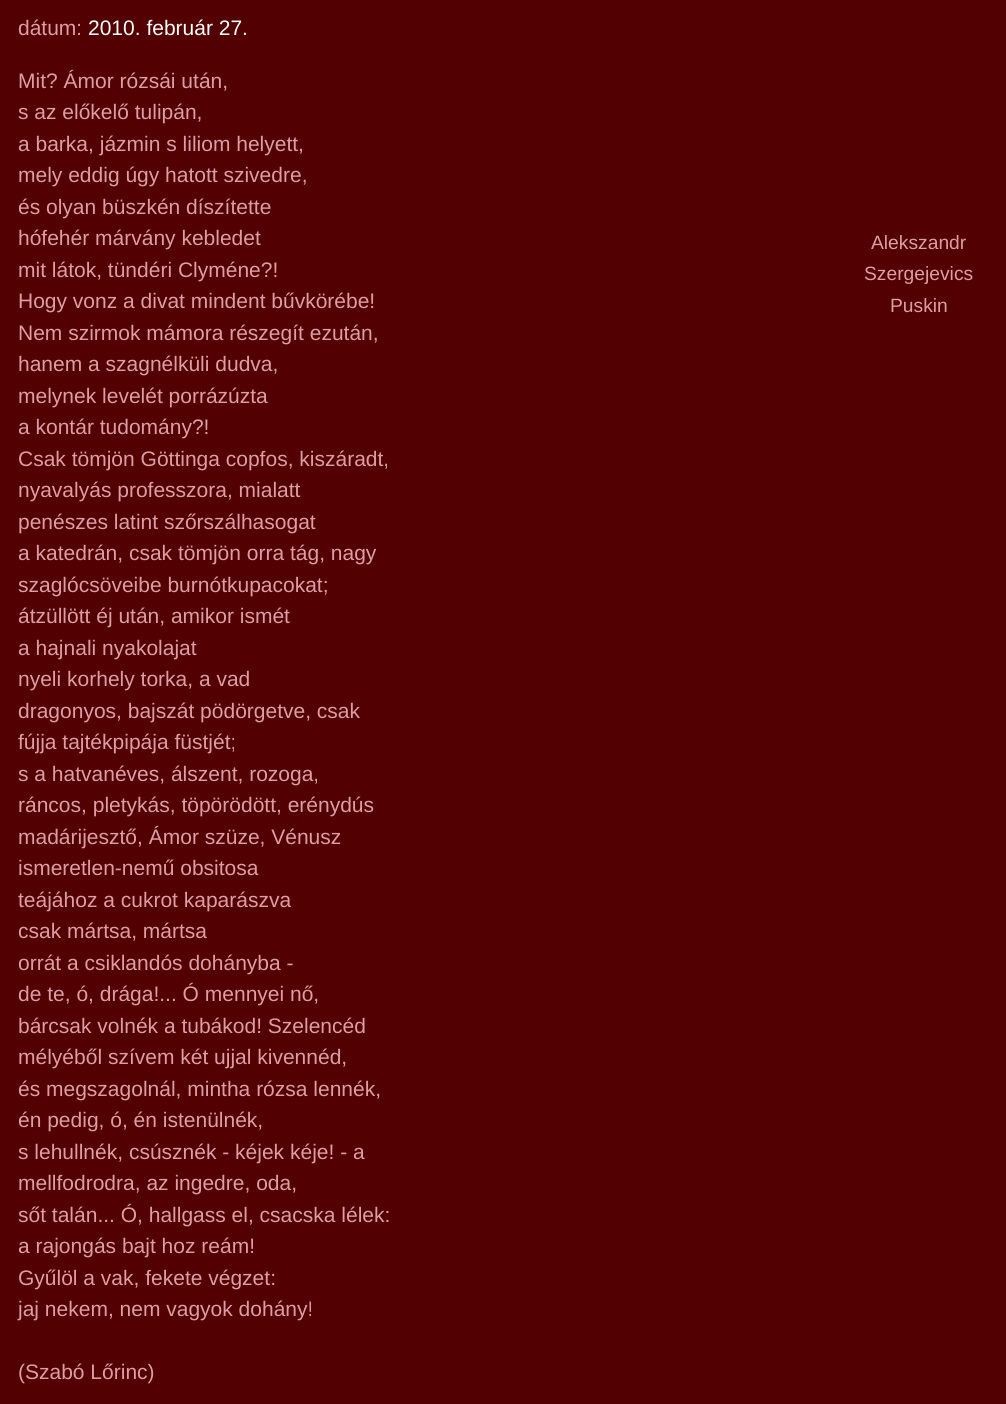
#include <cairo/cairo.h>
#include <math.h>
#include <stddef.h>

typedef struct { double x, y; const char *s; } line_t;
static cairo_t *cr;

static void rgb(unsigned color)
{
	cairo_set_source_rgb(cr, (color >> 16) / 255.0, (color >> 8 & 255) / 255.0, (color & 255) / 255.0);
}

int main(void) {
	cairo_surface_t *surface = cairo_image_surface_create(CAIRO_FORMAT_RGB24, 1006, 1404);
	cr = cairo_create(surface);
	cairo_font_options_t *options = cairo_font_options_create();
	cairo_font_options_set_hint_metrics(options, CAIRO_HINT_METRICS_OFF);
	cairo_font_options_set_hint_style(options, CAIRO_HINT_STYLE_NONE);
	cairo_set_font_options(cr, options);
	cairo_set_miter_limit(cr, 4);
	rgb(0x520002);
	cairo_paint(cr);
	cairo_select_font_face(cr, "Liberation Sans", CAIRO_FONT_SLANT_NORMAL, CAIRO_FONT_WEIGHT_NORMAL);
	cairo_set_font_size(cr, 21);
	rgb(0xdc9ea4);
	cairo_move_to(cr, 18, 35);
	cairo_show_text(cr, "dátum:");
	rgb(0xffffff);
	cairo_move_to(cr, 88, 35);
	cairo_show_text(cr, "2010. február 27.");
	rgb(0xdc9ea4);
	{
		static const line_t items[] = {
			{18, 88, "Mit? Ámor rózsái után,"},
			{18, 119, "s az előkelő tulipán,"},
			{18, 151, "a barka, jázmin s liliom helyett,"},
			{18, 182, "mely eddig úgy hatott szivedre,"},
			{18, 214, "és olyan büszkén díszítette"},
			{18, 245, "hófehér márvány kebledet"},
			{18, 277, "mit látok, tündéri Clyméne?!"},
			{18, 308, "Hogy vonz a divat mindent bűvkörébe!"},
			{18, 340, "Nem szirmok mámora részegít ezután,"},
			{18, 371, "hanem a szagnélküli dudva,"},
			{18, 403, "melynek levelét porrázúzta"},
			{18, 434, "a kontár tudomány?!"},
			{18, 466, "Csak tömjön Göttinga copfos, kiszáradt,"},
			{18, 497, "nyavalyás professzora, mialatt"},
			{18, 529, "penészes latint szőrszálhasogat"},
			{18, 560, "a katedrán, csak tömjön orra tág, nagy"},
			{18, 592, "szaglócsöveibe burnótkupacokat;"},
			{18, 623, "átzüllött éj után, amikor ismét"},
			{18, 655, "a hajnali nyakolajat"},
			{18, 686, "nyeli korhely torka, a vad"},
			{18, 718, "dragonyos, bajszát pödörgetve, csak"},
			{18, 749, "fújja tajtékpipája füstjét;"},
			{18, 781, "s a hatvanéves, álszent, rozoga,"},
			{18, 812, "ráncos, pletykás, töpörödött, erénydús"},
			{18, 844, "madárijesztő, Ámor szüze, Vénusz"},
			{18, 875, "ismeretlen-nemű obsitosa"},
			{18, 907, "teájához a cukrot kaparászva"},
			{18, 938, "csak mártsa, mártsa"},
			{18, 970, "orrát a csiklandós dohányba -"},
			{18, 1001, "de te, ó, drága!... Ó mennyei nő,"},
			{18, 1033, "bárcsak volnék a tubákod! Szelencéd"},
			{18, 1064, "mélyéből szívem két ujjal kivennéd,"},
			{18, 1096, "és megszagolnál, mintha rózsa lennék,"},
			{18, 1127, "én pedig, ó, én istenülnék,"},
			{18, 1159, "s lehullnék, csúsznék - kéjek kéje! - a"},
			{18, 1190, "mellfodrodra, az ingedre, oda,"},
			{18, 1222, "sőt talán... Ó, hallgass el, csacska lélek:"},
			{18, 1253, "a rajongás bajt hoz reám!"},
			{18, 1285, "Gyűlöl a vak, fekete végzet:"},
			{18, 1316, "jaj nekem, nem vagyok dohány!"},
			{18, 1379, "(Szabó Lőrinc)"},
		};
		for (size_t i = 0; i < sizeof items / sizeof *items; i++) {
			cairo_move_to(cr, items[i].x, items[i].y);
			cairo_show_text(cr, items[i].s);
		}
	}
	cairo_set_font_size(cr, 19.25);
	{
		static const line_t items[] = {
			{871, 249, "Alekszandr"},
			{864, 280, "Szergejevics"},
			{890, 312, "Puskin"},
		};
		for (size_t i = 0; i < sizeof items / sizeof *items; i++) {
			cairo_move_to(cr, items[i].x, items[i].y);
			cairo_show_text(cr, items[i].s);
		}
	}
	cairo_surface_write_to_png(surface, "page.png");
	cairo_font_options_destroy(options);
	cairo_destroy(cr);
	cairo_surface_destroy(surface);
	return 0;
}
